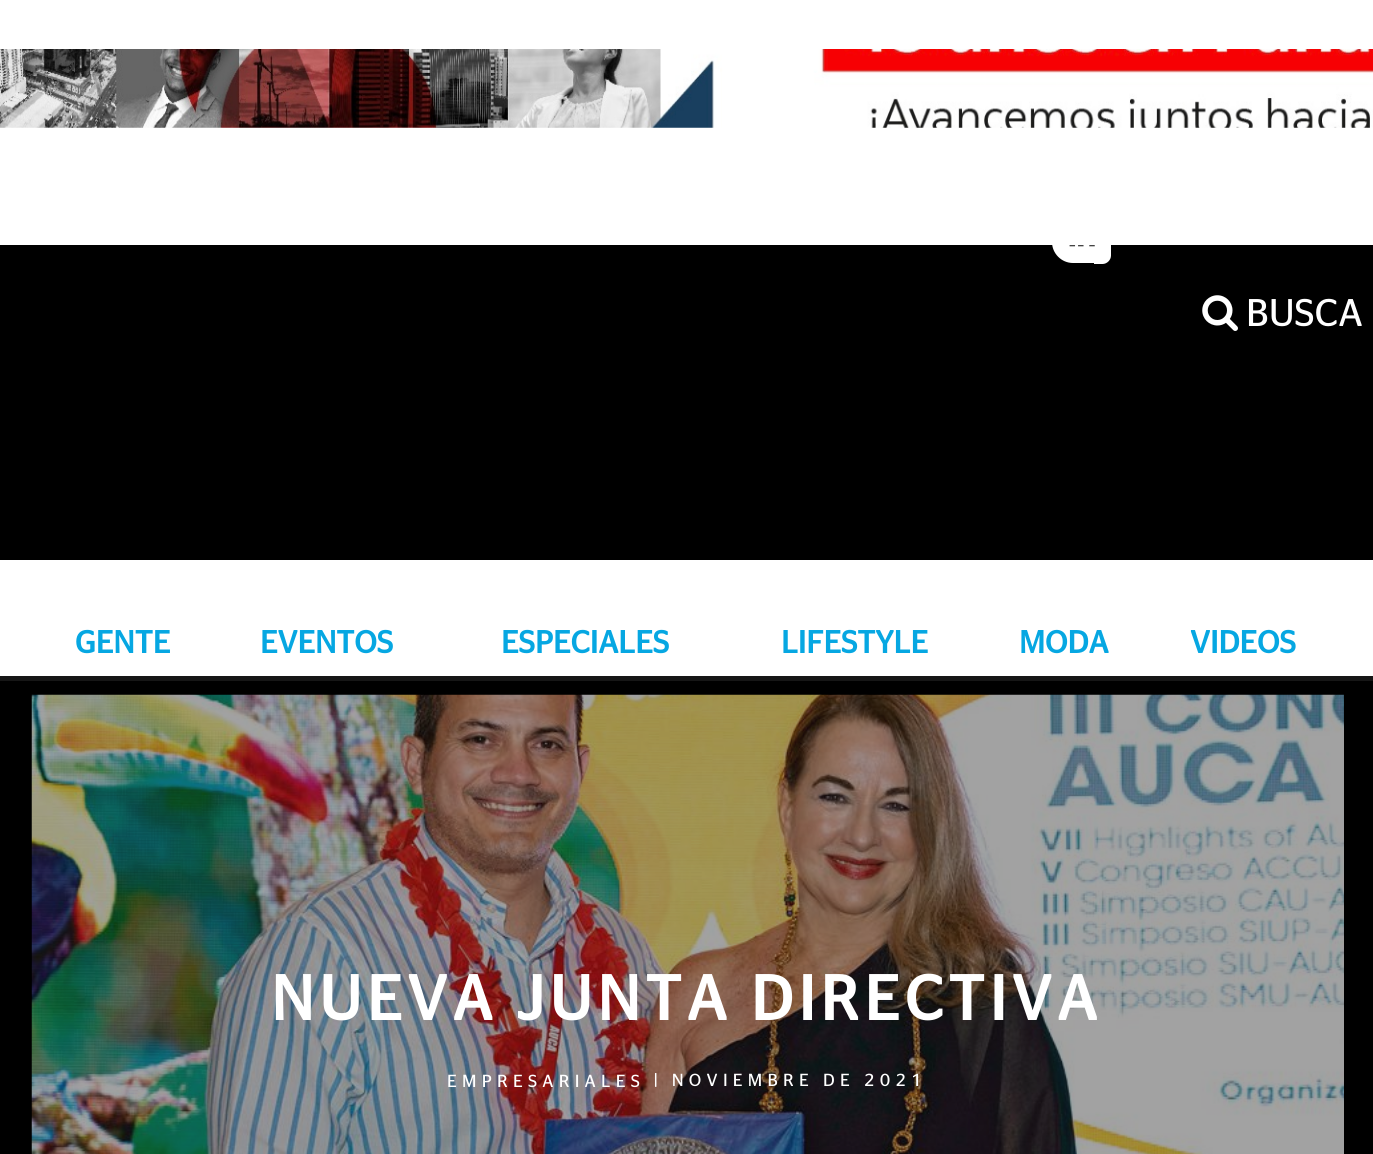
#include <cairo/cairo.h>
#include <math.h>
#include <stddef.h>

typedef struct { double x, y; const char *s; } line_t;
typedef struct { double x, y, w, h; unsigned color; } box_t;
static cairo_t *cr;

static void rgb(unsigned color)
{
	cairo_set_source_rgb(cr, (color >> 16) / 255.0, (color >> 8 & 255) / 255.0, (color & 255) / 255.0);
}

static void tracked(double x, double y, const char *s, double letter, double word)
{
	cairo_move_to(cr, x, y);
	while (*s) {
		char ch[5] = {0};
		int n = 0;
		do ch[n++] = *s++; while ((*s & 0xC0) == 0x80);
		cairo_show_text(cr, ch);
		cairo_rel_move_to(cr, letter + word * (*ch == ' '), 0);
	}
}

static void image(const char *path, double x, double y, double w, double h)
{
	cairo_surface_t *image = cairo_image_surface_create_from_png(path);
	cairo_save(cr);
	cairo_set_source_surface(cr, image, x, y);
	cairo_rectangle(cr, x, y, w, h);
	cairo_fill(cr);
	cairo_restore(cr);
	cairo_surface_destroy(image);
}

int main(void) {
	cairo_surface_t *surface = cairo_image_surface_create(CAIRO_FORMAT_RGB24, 1373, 1154);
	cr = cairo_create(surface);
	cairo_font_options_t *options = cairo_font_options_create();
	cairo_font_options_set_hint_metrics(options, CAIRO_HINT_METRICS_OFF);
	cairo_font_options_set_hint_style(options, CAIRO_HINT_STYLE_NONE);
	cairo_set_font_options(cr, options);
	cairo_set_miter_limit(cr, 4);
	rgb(0x000000);
	cairo_paint(cr);
	rgb(0xffffff);
	cairo_new_path(cr);
	cairo_move_to(cr, 1073, 205);
	cairo_line_to(cr, 1094, 205);
	cairo_line_to(cr, 1094, 263);
	cairo_line_to(cr, 1073, 263);
	cairo_curve_to(cr, 1061.5, 263, 1052, 253.5, 1052, 242);
	cairo_line_to(cr, 1052, 226);
	cairo_curve_to(cr, 1052, 214.5, 1061.5, 205, 1073, 205);
	cairo_close_path(cr);
	cairo_fill(cr);
	cairo_new_path(cr);
	cairo_move_to(cr, 1094, 207);
	cairo_line_to(cr, 1102.5, 207);
	cairo_curve_to(cr, 1107, 207, 1111, 211, 1111, 215.5);
	cairo_line_to(cr, 1111, 255.5);
	cairo_curve_to(cr, 1111, 260, 1107, 264, 1102.5, 264);
	cairo_line_to(cr, 1094, 264);
	cairo_close_path(cr);
	cairo_fill(cr);
	cairo_rectangle(cr, 0, 0, 1373, 245);
	cairo_fill(cr);
	image("img/1.png", 0, 49, 1373, 79);
	image("img/2.png", 1069, 245, 26, 2);
	image("img/3.png", 1202, 295, 36, 36);
	{
		static const box_t items[] = {
			{0, 560, 1373, 116, 0xffffff},
			{0, 676, 1373, 5, 0x161616},
			{32, 695, 1312, 459, 0x161616},
		};
		for (size_t i = 0; i < sizeof items / sizeof *items; i++) {
			rgb(items[i].color);
			cairo_rectangle(cr, items[i].x, items[i].y, items[i].w, items[i].h);
			cairo_fill(cr);
		}
	}
	image("img/4.png", 31, 694, 1313, 460);
	cairo_select_font_face(cr, "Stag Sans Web", CAIRO_FONT_SLANT_NORMAL, CAIRO_FONT_WEIGHT_NORMAL);
	cairo_set_font_size(cr, 38.5);
	rgb(0xffffff);
	cairo_move_to(cr, 1246, 326);
	cairo_show_text(cr, "BUSCA");
	cairo_select_font_face(cr, "Stag Sans Web", CAIRO_FONT_SLANT_NORMAL, CAIRO_FONT_WEIGHT_BOLD);
	cairo_set_font_size(cr, 31.5);
	rgb(0x06a7e2);
	{
		static const line_t items[] = {
			{75, 653, "GENTE"},
			{260, 653, "EVENTOS"},
			{501, 653, "ESPECIALES"},
			{781, 653, "LIFESTYLE"},
			{1019, 653, "MODA"},
			{1190, 653, "VIDEOS"},
		};
		for (size_t i = 0; i < sizeof items / sizeof *items; i++) {
			cairo_move_to(cr, items[i].x, items[i].y);
			cairo_show_text(cr, items[i].s);
		}
	}
	cairo_set_font_size(cr, 63);
	rgb(0xffffff);
	tracked(271, 1020, "NUEVA JUNTA DIRECTIVA", 5.25, 0);
	cairo_select_font_face(cr, "Stag Sans Web", CAIRO_FONT_SLANT_NORMAL, CAIRO_FONT_WEIGHT_NORMAL);
	cairo_set_font_size(cr, 17.5);
	tracked(447, 1087, "EMPRESARIALES", 5.25, 0);
	tracked(654, 1086, "| NOVIEMBRE DE 2021", 5.25, 0);
	cairo_surface_write_to_png(surface, "page.png");
	cairo_font_options_destroy(options);
	cairo_destroy(cr);
	cairo_surface_destroy(surface);
	return 0;
}
